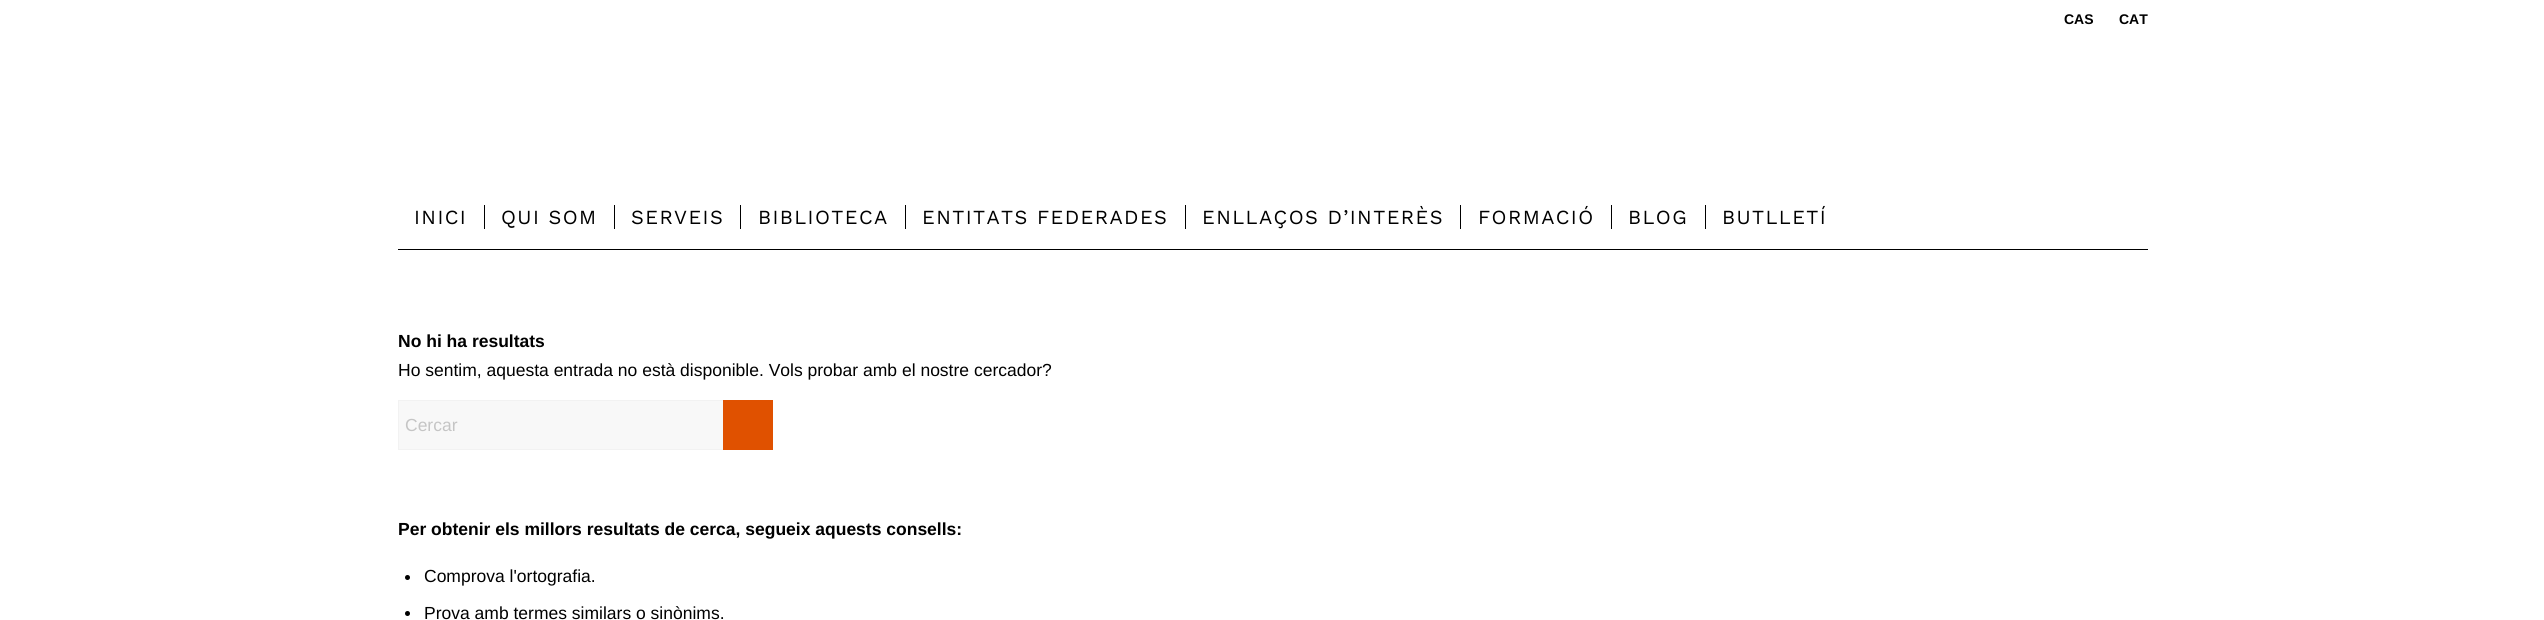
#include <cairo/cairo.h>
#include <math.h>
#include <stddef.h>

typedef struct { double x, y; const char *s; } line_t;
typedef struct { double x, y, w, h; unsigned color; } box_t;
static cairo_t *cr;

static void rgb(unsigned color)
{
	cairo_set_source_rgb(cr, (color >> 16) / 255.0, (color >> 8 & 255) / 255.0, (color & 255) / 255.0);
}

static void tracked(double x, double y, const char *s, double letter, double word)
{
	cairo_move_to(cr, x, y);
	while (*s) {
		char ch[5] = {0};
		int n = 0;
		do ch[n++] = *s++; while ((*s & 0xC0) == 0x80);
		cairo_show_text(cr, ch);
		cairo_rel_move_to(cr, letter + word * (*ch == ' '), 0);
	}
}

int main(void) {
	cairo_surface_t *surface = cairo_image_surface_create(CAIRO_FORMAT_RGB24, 2544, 620);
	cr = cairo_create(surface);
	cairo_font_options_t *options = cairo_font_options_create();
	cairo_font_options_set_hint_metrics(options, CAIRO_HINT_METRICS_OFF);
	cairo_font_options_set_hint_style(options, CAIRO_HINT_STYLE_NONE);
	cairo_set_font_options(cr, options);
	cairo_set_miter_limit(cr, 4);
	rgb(0xffffff);
	cairo_paint(cr);
	{
		static const box_t items[] = {
			{398, 249, 1750, 1, 0x000000},
			{484, 205, 1, 24, 0x000000},
			{614, 205, 1, 24, 0x000000},
			{740, 205, 1, 24, 0x000000},
			{905, 205, 1, 24, 0x000000},
			{1185, 205, 1, 24, 0x000000},
			{1460, 205, 1, 24, 0x000000},
			{1611, 205, 1, 24, 0x000000},
			{1705, 205, 1, 24, 0x000000},
			{399, 401, 324, 48, 0xf8f8f8},
		};
		for (size_t i = 0; i < sizeof items / sizeof *items; i++) {
			rgb(items[i].color);
			cairo_rectangle(cr, items[i].x, items[i].y, items[i].w, items[i].h);
			cairo_fill(cr);
		}
	}
	cairo_rectangle(cr, 398.5, 400.5, 374, 49);
	rgb(0xf2f2f2);
	cairo_set_line_width(cr, 1);
	cairo_stroke(cr);
	rgb(0xe05100);
	cairo_rectangle(cr, 723, 400, 50, 50);
	cairo_fill(cr);
	rgb(0x000000);
	cairo_arc(cr, 407.5, 577.5, 2.5, 0, 2 * M_PI);
	cairo_fill(cr);
	cairo_arc(cr, 407.5, 613.5, 2.5, 0, 2 * M_PI);
	cairo_fill(cr);
	cairo_select_font_face(cr, "Liberation Sans", CAIRO_FONT_SLANT_NORMAL, CAIRO_FONT_WEIGHT_BOLD);
	cairo_set_font_size(cr, 14);
	cairo_move_to(cr, 2064, 24);
	cairo_show_text(cr, "CAS");
	cairo_move_to(cr, 2119, 24);
	cairo_show_text(cr, "CAT");
	cairo_select_font_face(cr, "Work Sans", CAIRO_FONT_SLANT_NORMAL, CAIRO_FONT_WEIGHT_NORMAL);
	cairo_set_font_size(cr, 20);
	{
		static const line_t items[] = {
			{414, 224, "INICI"},
			{501, 224, "QUI SOM"},
			{631, 224, "SERVEIS"},
			{758, 224, "BIBLIOTECA"},
			{922, 224, "ENTITATS FEDERADES"},
			{1202, 224, "ENLLAÇOS D’INTERÈS"},
			{1478, 224, "FORMACIÓ"},
			{1628, 224, "BLOG"},
			{1722, 224, "BUTLLETÍ"},
		};
		for (size_t i = 0; i < sizeof items / sizeof *items; i++) {
			tracked(items[i].x, items[i].y, items[i].s, 1.4, 0);
		}
	}
	cairo_select_font_face(cr, "Liberation Sans", CAIRO_FONT_SLANT_NORMAL, CAIRO_FONT_WEIGHT_BOLD);
	cairo_set_font_size(cr, 17.5);
	cairo_move_to(cr, 398, 347);
	cairo_show_text(cr, "No hi ha resultats");
	cairo_select_font_face(cr, "Liberation Sans", CAIRO_FONT_SLANT_NORMAL, CAIRO_FONT_WEIGHT_NORMAL);
	cairo_move_to(cr, 398, 376);
	cairo_show_text(cr, "Ho sentim, aquesta entrada no està disponible. Vols probar amb el nostre cercador?");
	rgb(0xc5c5c5);
	cairo_move_to(cr, 405, 431);
	cairo_show_text(cr, "Cercar");
	cairo_select_font_face(cr, "Liberation Sans", CAIRO_FONT_SLANT_NORMAL, CAIRO_FONT_WEIGHT_BOLD);
	rgb(0x000000);
	cairo_move_to(cr, 398, 535);
	cairo_show_text(cr, "Per obtenir els millors resultats de cerca, segueix aquests consells:");
	cairo_select_font_face(cr, "Liberation Sans", CAIRO_FONT_SLANT_NORMAL, CAIRO_FONT_WEIGHT_NORMAL);
	cairo_move_to(cr, 424, 582);
	cairo_show_text(cr, "Comprova l'ortografia.");
	cairo_move_to(cr, 424, 619);
	cairo_show_text(cr, "Prova amb termes similars o sinònims.");
	cairo_surface_write_to_png(surface, "page.png");
	cairo_font_options_destroy(options);
	cairo_destroy(cr);
	cairo_surface_destroy(surface);
	return 0;
}
